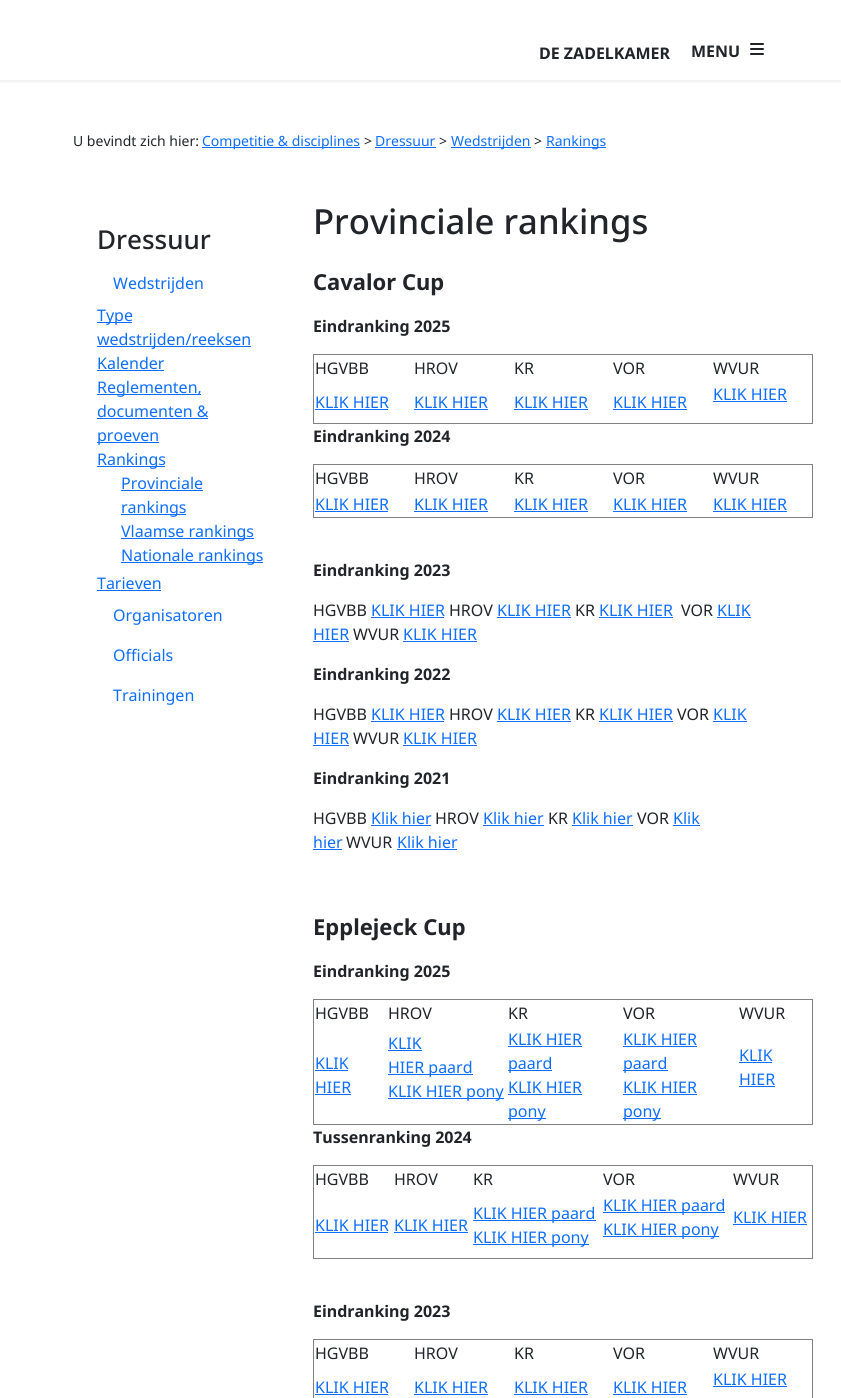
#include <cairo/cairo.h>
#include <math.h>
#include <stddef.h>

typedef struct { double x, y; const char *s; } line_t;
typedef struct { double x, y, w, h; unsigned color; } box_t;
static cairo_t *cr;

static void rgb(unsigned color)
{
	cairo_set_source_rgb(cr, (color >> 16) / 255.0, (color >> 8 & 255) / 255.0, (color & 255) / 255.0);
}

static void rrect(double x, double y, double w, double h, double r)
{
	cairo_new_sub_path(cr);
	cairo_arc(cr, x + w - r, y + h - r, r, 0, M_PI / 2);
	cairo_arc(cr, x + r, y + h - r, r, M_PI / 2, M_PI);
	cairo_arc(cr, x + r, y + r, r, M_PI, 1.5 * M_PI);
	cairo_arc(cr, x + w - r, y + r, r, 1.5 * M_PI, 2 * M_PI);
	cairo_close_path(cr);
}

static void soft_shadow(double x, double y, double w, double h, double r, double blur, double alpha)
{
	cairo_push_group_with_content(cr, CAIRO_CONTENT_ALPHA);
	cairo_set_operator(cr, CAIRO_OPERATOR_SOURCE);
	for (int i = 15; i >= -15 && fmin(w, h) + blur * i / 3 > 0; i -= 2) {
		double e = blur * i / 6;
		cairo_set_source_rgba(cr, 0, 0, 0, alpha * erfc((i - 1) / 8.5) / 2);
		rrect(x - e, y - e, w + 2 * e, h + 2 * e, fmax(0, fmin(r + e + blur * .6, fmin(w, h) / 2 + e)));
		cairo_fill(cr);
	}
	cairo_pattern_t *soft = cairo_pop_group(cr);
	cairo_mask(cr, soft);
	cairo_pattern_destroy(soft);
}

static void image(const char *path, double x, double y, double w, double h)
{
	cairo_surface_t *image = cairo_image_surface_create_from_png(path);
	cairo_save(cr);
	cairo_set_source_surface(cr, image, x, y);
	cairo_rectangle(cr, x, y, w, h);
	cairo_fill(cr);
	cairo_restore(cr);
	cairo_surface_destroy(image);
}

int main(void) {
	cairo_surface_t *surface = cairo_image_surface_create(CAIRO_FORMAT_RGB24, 841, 1398);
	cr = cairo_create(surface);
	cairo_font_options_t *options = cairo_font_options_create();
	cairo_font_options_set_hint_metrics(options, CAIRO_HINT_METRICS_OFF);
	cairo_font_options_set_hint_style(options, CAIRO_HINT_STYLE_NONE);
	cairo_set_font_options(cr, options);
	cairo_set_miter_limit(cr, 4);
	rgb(0xffffff);
	cairo_paint(cr);
	cairo_save(cr);
	cairo_rectangle(cr, 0, 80, 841, 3);
	cairo_clip(cr);
	rgb(0x000000);
	soft_shadow(0, 28, 841, 54, 0, 2, 0.07);
	cairo_restore(cr);
	image("img/1.png", 750, 43, 14, 12);
	{
		static const box_t items[] = {
			{202, 147, 158, 1, 0x0d6efd},
			{375, 147, 61, 1, 0x0d6efd},
			{451, 147, 80, 1, 0x0d6efd},
			{546, 147, 60, 1, 0x0d6efd},
			{97, 322, 35, 1, 0x0d6efd},
			{97, 346, 154, 1, 0x0d6efd},
			{97, 370, 67, 1, 0x0d6efd},
			{97, 394, 104, 1, 0x0d6efd},
			{97, 418, 111, 1, 0x0d6efd},
			{97, 442, 62, 1, 0x0d6efd},
			{97, 466, 68, 1, 0x0d6efd},
			{121, 490, 82, 1, 0x0d6efd},
			{121, 514, 65, 1, 0x0d6efd},
			{121, 538, 133, 1, 0x0d6efd},
			{121, 562, 142, 1, 0x0d6efd},
			{97, 590, 64, 1, 0x0d6efd},
			{313, 354, 500, 1, 0x808080},
			{812, 354, 1, 70, 0x808080},
			{313, 423, 500, 1, 0x808080},
			{313, 354, 1, 70, 0x808080},
			{713, 401, 74, 1, 0x0d6efd},
			{315, 409, 73, 1, 0x0d6efd},
			{414, 409, 74, 1, 0x0d6efd},
			{514, 409, 74, 1, 0x0d6efd},
			{613, 409, 74, 1, 0x0d6efd},
			{313, 464, 500, 1, 0x808080},
			{812, 464, 1, 54, 0x808080},
			{313, 517, 500, 1, 0x808080},
			{313, 464, 1, 54, 0x808080},
			{315, 511, 73, 1, 0x0d6efd},
			{414, 511, 74, 1, 0x0d6efd},
			{514, 511, 74, 1, 0x0d6efd},
			{613, 511, 74, 1, 0x0d6efd},
			{713, 511, 74, 1, 0x0d6efd},
			{371, 617, 73, 1, 0x0d6efd},
			{497, 617, 74, 1, 0x0d6efd},
			{599, 617, 74, 1, 0x0d6efd},
			{717, 617, 34, 1, 0x0d6efd},
			{313, 641, 36, 1, 0x0d6efd},
			{403, 641, 74, 1, 0x0d6efd},
			{371, 721, 73, 1, 0x0d6efd},
			{497, 721, 74, 1, 0x0d6efd},
			{599, 721, 74, 1, 0x0d6efd},
			{713, 721, 34, 1, 0x0d6efd},
			{313, 745, 36, 1, 0x0d6efd},
			{403, 745, 74, 1, 0x0d6efd},
			{371, 825, 60, 1, 0x0d6efd},
			{483, 825, 61, 1, 0x0d6efd},
			{572, 825, 61, 1, 0x0d6efd},
			{673, 825, 27, 1, 0x0d6efd},
			{313, 849, 29, 1, 0x0d6efd},
			{397, 849, 60, 1, 0x0d6efd},
			{313, 999, 500, 1, 0x808080},
			{812, 999, 1, 126, 0x808080},
			{313, 1124, 500, 1, 0x808080},
			{313, 999, 1, 126, 0x808080},
			{315, 1070, 33, 1, 0x0d6efd},
			{315, 1094, 36, 1, 0x0d6efd},
			{388, 1050, 34, 1, 0x0d6efd},
			{388, 1074, 85, 1, 0x0d6efd},
			{388, 1098, 116, 1, 0x0d6efd},
			{508, 1046, 74, 1, 0x0d6efd},
			{508, 1070, 44, 1, 0x0d6efd},
			{508, 1094, 74, 1, 0x0d6efd},
			{508, 1118, 38, 1, 0x0d6efd},
			{623, 1046, 74, 1, 0x0d6efd},
			{623, 1070, 45, 1, 0x0d6efd},
			{623, 1094, 74, 1, 0x0d6efd},
			{623, 1118, 38, 1, 0x0d6efd},
			{739, 1062, 33, 1, 0x0d6efd},
			{739, 1086, 36, 1, 0x0d6efd},
			{313, 1165, 500, 1, 0x808080},
			{812, 1165, 1, 94, 0x808080},
			{313, 1258, 500, 1, 0x808080},
			{313, 1165, 1, 94, 0x808080},
			{473, 1220, 123, 1, 0x0d6efd},
			{473, 1244, 116, 1, 0x0d6efd},
			{603, 1212, 122, 1, 0x0d6efd},
			{603, 1236, 116, 1, 0x0d6efd},
			{733, 1224, 74, 1, 0x0d6efd},
			{315, 1232, 73, 1, 0x0d6efd},
			{394, 1232, 74, 1, 0x0d6efd},
			{313, 1339, 500, 1, 0x808080},
			{812, 1339, 1, 59, 0x808080},
			{313, 1339, 1, 59, 0x808080},
			{713, 1386, 74, 1, 0x0d6efd},
			{315, 1394, 73, 1, 0x0d6efd},
			{414, 1394, 74, 1, 0x0d6efd},
			{514, 1394, 74, 1, 0x0d6efd},
			{613, 1394, 74, 1, 0x0d6efd},
		};
		for (size_t i = 0; i < sizeof items / sizeof *items; i++) {
			rgb(items[i].color);
			cairo_rectangle(cr, items[i].x, items[i].y, items[i].w, items[i].h);
			cairo_fill(cr);
		}
	}
	cairo_select_font_face(cr, "Noto Sans", CAIRO_FONT_SLANT_NORMAL, CAIRO_FONT_WEIGHT_BOLD);
	cairo_set_font_size(cr, 16);
	rgb(0x212529);
	cairo_move_to(cr, 539, 59);
	cairo_show_text(cr, "DE ZADELKAMER");
	cairo_move_to(cr, 691, 57);
	cairo_show_text(cr, "MENU");
	cairo_select_font_face(cr, "Noto Sans", CAIRO_FONT_SLANT_NORMAL, CAIRO_FONT_WEIGHT_NORMAL);
	cairo_set_font_size(cr, 14);
	cairo_move_to(cr, 73, 146);
	cairo_show_text(cr, "U bevindt zich hier:");
	rgb(0x0d6efd);
	cairo_move_to(cr, 202, 146);
	cairo_show_text(cr, "Competitie & disciplines");
	rgb(0x212529);
	cairo_move_to(cr, 364, 146);
	cairo_show_text(cr, ">");
	rgb(0x0d6efd);
	cairo_move_to(cr, 375, 146);
	cairo_show_text(cr, "Dressuur");
	rgb(0x212529);
	cairo_move_to(cr, 439, 146);
	cairo_show_text(cr, ">");
	rgb(0x0d6efd);
	cairo_move_to(cr, 451, 146);
	cairo_show_text(cr, "Wedstrijden");
	rgb(0x212529);
	cairo_move_to(cr, 534, 146);
	cairo_show_text(cr, ">");
	rgb(0x0d6efd);
	cairo_move_to(cr, 546, 146);
	cairo_show_text(cr, "Rankings");
	cairo_select_font_face(cr, "Noto Sans Medium", CAIRO_FONT_SLANT_NORMAL, CAIRO_FONT_WEIGHT_NORMAL);
	cairo_set_font_size(cr, 26);
	rgb(0x212529);
	cairo_move_to(cr, 97, 249);
	cairo_show_text(cr, "Dressuur");
	cairo_select_font_face(cr, "Noto Sans", CAIRO_FONT_SLANT_NORMAL, CAIRO_FONT_WEIGHT_NORMAL);
	cairo_set_font_size(cr, 16);
	rgb(0x0d6efd);
	{
		static const line_t items[] = {
			{113, 289, "Wedstrijden"},
			{97, 321, "Type"},
			{97, 345, "wedstrijden/reeksen"},
			{97, 369, "Kalender"},
			{97, 393, "Reglementen,"},
			{97, 417, "documenten &"},
			{97, 441, "proeven"},
			{97, 465, "Rankings"},
			{121, 489, "Provinciale"},
			{121, 513, "rankings"},
			{121, 537, "Vlaamse rankings"},
			{121, 561, "Nationale rankings"},
			{97, 589, "Tarieven"},
			{113, 621, "Organisatoren"},
			{113, 661, "Officials"},
			{113, 701, "Trainingen"},
		};
		for (size_t i = 0; i < sizeof items / sizeof *items; i++) {
			cairo_move_to(cr, items[i].x, items[i].y);
			cairo_show_text(cr, items[i].s);
		}
	}
	cairo_select_font_face(cr, "Noto Sans Medium", CAIRO_FONT_SLANT_NORMAL, CAIRO_FONT_WEIGHT_NORMAL);
	cairo_set_font_size(cr, 34.6);
	rgb(0x212529);
	cairo_move_to(cr, 313, 234);
	cairo_show_text(cr, "Provinciale rankings");
	cairo_select_font_face(cr, "Noto Sans", CAIRO_FONT_SLANT_NORMAL, CAIRO_FONT_WEIGHT_BOLD);
	cairo_set_font_size(cr, 22);
	cairo_move_to(cr, 313, 290);
	cairo_show_text(cr, "Cavalor Cup");
	cairo_set_font_size(cr, 16);
	cairo_move_to(cr, 313, 332);
	cairo_show_text(cr, "Eindranking 2025");
	cairo_select_font_face(cr, "Noto Sans", CAIRO_FONT_SLANT_NORMAL, CAIRO_FONT_WEIGHT_NORMAL);
	{
		static const line_t items[] = {
			{315, 374, "HGVBB"},
			{414, 374, "HROV"},
			{514, 374, "KR"},
			{613, 374, "VOR"},
			{713, 374, "WVUR"},
		};
		for (size_t i = 0; i < sizeof items / sizeof *items; i++) {
			cairo_move_to(cr, items[i].x, items[i].y);
			cairo_show_text(cr, items[i].s);
		}
	}
	rgb(0x0d6efd);
	{
		static const line_t items[] = {
			{713, 400, "KLIK HIER"},
			{315, 408, "KLIK HIER"},
			{414, 408, "KLIK HIER"},
			{514, 408, "KLIK HIER"},
			{613, 408, "KLIK HIER"},
		};
		for (size_t i = 0; i < sizeof items / sizeof *items; i++) {
			cairo_move_to(cr, items[i].x, items[i].y);
			cairo_show_text(cr, items[i].s);
		}
	}
	cairo_select_font_face(cr, "Noto Sans", CAIRO_FONT_SLANT_NORMAL, CAIRO_FONT_WEIGHT_BOLD);
	rgb(0x212529);
	cairo_move_to(cr, 313, 442);
	cairo_show_text(cr, "Eindranking 2024");
	cairo_select_font_face(cr, "Noto Sans", CAIRO_FONT_SLANT_NORMAL, CAIRO_FONT_WEIGHT_NORMAL);
	{
		static const line_t items[] = {
			{315, 484, "HGVBB"},
			{414, 484, "HROV"},
			{514, 484, "KR"},
			{613, 484, "VOR"},
			{713, 484, "WVUR"},
		};
		for (size_t i = 0; i < sizeof items / sizeof *items; i++) {
			cairo_move_to(cr, items[i].x, items[i].y);
			cairo_show_text(cr, items[i].s);
		}
	}
	rgb(0x0d6efd);
	{
		static const line_t items[] = {
			{315, 510, "KLIK HIER"},
			{414, 510, "KLIK HIER"},
			{514, 510, "KLIK HIER"},
			{613, 510, "KLIK HIER"},
			{713, 510, "KLIK HIER"},
		};
		for (size_t i = 0; i < sizeof items / sizeof *items; i++) {
			cairo_move_to(cr, items[i].x, items[i].y);
			cairo_show_text(cr, items[i].s);
		}
	}
	cairo_select_font_face(cr, "Noto Sans", CAIRO_FONT_SLANT_NORMAL, CAIRO_FONT_WEIGHT_BOLD);
	rgb(0x212529);
	cairo_move_to(cr, 313, 576);
	cairo_show_text(cr, "Eindranking 2023");
	cairo_select_font_face(cr, "Noto Sans", CAIRO_FONT_SLANT_NORMAL, CAIRO_FONT_WEIGHT_NORMAL);
	cairo_move_to(cr, 313, 616);
	cairo_show_text(cr, "HGVBB");
	rgb(0x0d6efd);
	cairo_move_to(cr, 371, 616);
	cairo_show_text(cr, "KLIK HIER");
	rgb(0x212529);
	cairo_move_to(cr, 449, 616);
	cairo_show_text(cr, "HROV");
	rgb(0x0d6efd);
	cairo_move_to(cr, 497, 616);
	cairo_show_text(cr, "KLIK HIER");
	rgb(0x212529);
	cairo_move_to(cr, 575, 616);
	cairo_show_text(cr, "KR");
	rgb(0x0d6efd);
	cairo_move_to(cr, 599, 616);
	cairo_show_text(cr, "KLIK HIER");
	rgb(0x212529);
	cairo_move_to(cr, 681, 616);
	cairo_show_text(cr, "VOR");
	rgb(0x0d6efd);
	cairo_move_to(cr, 717, 616);
	cairo_show_text(cr, "KLIK");
	cairo_move_to(cr, 313, 640);
	cairo_show_text(cr, "HIER");
	rgb(0x212529);
	cairo_move_to(cr, 353, 640);
	cairo_show_text(cr, "WVUR");
	rgb(0x0d6efd);
	cairo_move_to(cr, 403, 640);
	cairo_show_text(cr, "KLIK HIER");
	cairo_select_font_face(cr, "Noto Sans", CAIRO_FONT_SLANT_NORMAL, CAIRO_FONT_WEIGHT_BOLD);
	rgb(0x212529);
	cairo_move_to(cr, 313, 680);
	cairo_show_text(cr, "Eindranking 2022");
	cairo_select_font_face(cr, "Noto Sans", CAIRO_FONT_SLANT_NORMAL, CAIRO_FONT_WEIGHT_NORMAL);
	cairo_move_to(cr, 313, 720);
	cairo_show_text(cr, "HGVBB");
	rgb(0x0d6efd);
	cairo_move_to(cr, 371, 720);
	cairo_show_text(cr, "KLIK HIER");
	rgb(0x212529);
	cairo_move_to(cr, 449, 720);
	cairo_show_text(cr, "HROV");
	rgb(0x0d6efd);
	cairo_move_to(cr, 497, 720);
	cairo_show_text(cr, "KLIK HIER");
	rgb(0x212529);
	cairo_move_to(cr, 575, 720);
	cairo_show_text(cr, "KR");
	rgb(0x0d6efd);
	cairo_move_to(cr, 599, 720);
	cairo_show_text(cr, "KLIK HIER");
	rgb(0x212529);
	cairo_move_to(cr, 677, 720);
	cairo_show_text(cr, "VOR");
	rgb(0x0d6efd);
	cairo_move_to(cr, 713, 720);
	cairo_show_text(cr, "KLIK");
	cairo_move_to(cr, 313, 744);
	cairo_show_text(cr, "HIER");
	rgb(0x212529);
	cairo_move_to(cr, 353, 744);
	cairo_show_text(cr, "WVUR");
	rgb(0x0d6efd);
	cairo_move_to(cr, 403, 744);
	cairo_show_text(cr, "KLIK HIER");
	cairo_select_font_face(cr, "Noto Sans", CAIRO_FONT_SLANT_NORMAL, CAIRO_FONT_WEIGHT_BOLD);
	rgb(0x212529);
	cairo_move_to(cr, 313, 784);
	cairo_show_text(cr, "Eindranking 2021");
	cairo_select_font_face(cr, "Noto Sans", CAIRO_FONT_SLANT_NORMAL, CAIRO_FONT_WEIGHT_NORMAL);
	cairo_move_to(cr, 313, 824);
	cairo_show_text(cr, "HGVBB");
	rgb(0x0d6efd);
	cairo_move_to(cr, 371, 824);
	cairo_show_text(cr, "Klik hier");
	rgb(0x212529);
	cairo_move_to(cr, 435, 824);
	cairo_show_text(cr, "HROV");
	rgb(0x0d6efd);
	cairo_move_to(cr, 483, 824);
	cairo_show_text(cr, "Klik hier");
	rgb(0x212529);
	cairo_move_to(cr, 548, 824);
	cairo_show_text(cr, "KR");
	rgb(0x0d6efd);
	cairo_move_to(cr, 572, 824);
	cairo_show_text(cr, "Klik hier");
	rgb(0x212529);
	cairo_move_to(cr, 637, 824);
	cairo_show_text(cr, "VOR");
	rgb(0x0d6efd);
	cairo_move_to(cr, 673, 824);
	cairo_show_text(cr, "Klik");
	cairo_move_to(cr, 313, 848);
	cairo_show_text(cr, "hier");
	rgb(0x212529);
	cairo_move_to(cr, 346, 848);
	cairo_show_text(cr, "WVUR");
	rgb(0x0d6efd);
	cairo_move_to(cr, 397, 848);
	cairo_show_text(cr, "Klik hier");
	cairo_select_font_face(cr, "Noto Sans", CAIRO_FONT_SLANT_NORMAL, CAIRO_FONT_WEIGHT_BOLD);
	cairo_set_font_size(cr, 22);
	rgb(0x212529);
	cairo_move_to(cr, 313, 935);
	cairo_show_text(cr, "Epplejeck Cup");
	cairo_set_font_size(cr, 16);
	cairo_move_to(cr, 313, 977);
	cairo_show_text(cr, "Eindranking 2025");
	cairo_select_font_face(cr, "Noto Sans", CAIRO_FONT_SLANT_NORMAL, CAIRO_FONT_WEIGHT_NORMAL);
	{
		static const line_t items[] = {
			{315, 1019, "HGVBB"},
			{388, 1019, "HROV"},
			{508, 1019, "KR"},
			{623, 1019, "VOR"},
			{739, 1019, "WVUR"},
		};
		for (size_t i = 0; i < sizeof items / sizeof *items; i++) {
			cairo_move_to(cr, items[i].x, items[i].y);
			cairo_show_text(cr, items[i].s);
		}
	}
	rgb(0x0d6efd);
	{
		static const line_t items[] = {
			{315, 1069, "KLIK"},
			{315, 1093, "HIER"},
			{388, 1049, "KLIK"},
			{388, 1073, "HIER paard"},
			{388, 1097, "KLIK HIER pony"},
			{508, 1045, "KLIK HIER"},
			{508, 1069, "paard"},
			{508, 1093, "KLIK HIER"},
			{508, 1117, "pony"},
			{623, 1045, "KLIK HIER"},
			{623, 1069, "paard"},
			{623, 1093, "KLIK HIER"},
			{623, 1117, "pony"},
			{739, 1061, "KLIK"},
			{739, 1085, "HIER"},
		};
		for (size_t i = 0; i < sizeof items / sizeof *items; i++) {
			cairo_move_to(cr, items[i].x, items[i].y);
			cairo_show_text(cr, items[i].s);
		}
	}
	cairo_select_font_face(cr, "Noto Sans", CAIRO_FONT_SLANT_NORMAL, CAIRO_FONT_WEIGHT_BOLD);
	rgb(0x212529);
	cairo_move_to(cr, 313, 1143);
	cairo_show_text(cr, "Tussenranking 2024");
	cairo_select_font_face(cr, "Noto Sans", CAIRO_FONT_SLANT_NORMAL, CAIRO_FONT_WEIGHT_NORMAL);
	{
		static const line_t items[] = {
			{315, 1185, "HGVBB"},
			{394, 1185, "HROV"},
			{473, 1185, "KR"},
			{603, 1185, "VOR"},
			{733, 1185, "WVUR"},
		};
		for (size_t i = 0; i < sizeof items / sizeof *items; i++) {
			cairo_move_to(cr, items[i].x, items[i].y);
			cairo_show_text(cr, items[i].s);
		}
	}
	rgb(0x0d6efd);
	{
		static const line_t items[] = {
			{473, 1219, "KLIK HIER paard"},
			{473, 1243, "KLIK HIER pony"},
			{603, 1211, "KLIK HIER paard"},
			{603, 1235, "KLIK HIER pony"},
			{733, 1223, "KLIK HIER"},
			{315, 1231, "KLIK HIER"},
			{394, 1231, "KLIK HIER"},
		};
		for (size_t i = 0; i < sizeof items / sizeof *items; i++) {
			cairo_move_to(cr, items[i].x, items[i].y);
			cairo_show_text(cr, items[i].s);
		}
	}
	cairo_select_font_face(cr, "Noto Sans", CAIRO_FONT_SLANT_NORMAL, CAIRO_FONT_WEIGHT_BOLD);
	rgb(0x212529);
	cairo_move_to(cr, 313, 1317);
	cairo_show_text(cr, "Eindranking 2023");
	cairo_select_font_face(cr, "Noto Sans", CAIRO_FONT_SLANT_NORMAL, CAIRO_FONT_WEIGHT_NORMAL);
	{
		static const line_t items[] = {
			{315, 1359, "HGVBB"},
			{414, 1359, "HROV"},
			{514, 1359, "KR"},
			{613, 1359, "VOR"},
			{713, 1359, "WVUR"},
		};
		for (size_t i = 0; i < sizeof items / sizeof *items; i++) {
			cairo_move_to(cr, items[i].x, items[i].y);
			cairo_show_text(cr, items[i].s);
		}
	}
	rgb(0x0d6efd);
	{
		static const line_t items[] = {
			{713, 1385, "KLIK HIER"},
			{315, 1393, "KLIK HIER"},
			{414, 1393, "KLIK HIER"},
			{514, 1393, "KLIK HIER"},
			{613, 1393, "KLIK HIER"},
		};
		for (size_t i = 0; i < sizeof items / sizeof *items; i++) {
			cairo_move_to(cr, items[i].x, items[i].y);
			cairo_show_text(cr, items[i].s);
		}
	}
	cairo_surface_write_to_png(surface, "page.png");
	cairo_font_options_destroy(options);
	cairo_destroy(cr);
	cairo_surface_destroy(surface);
	return 0;
}
